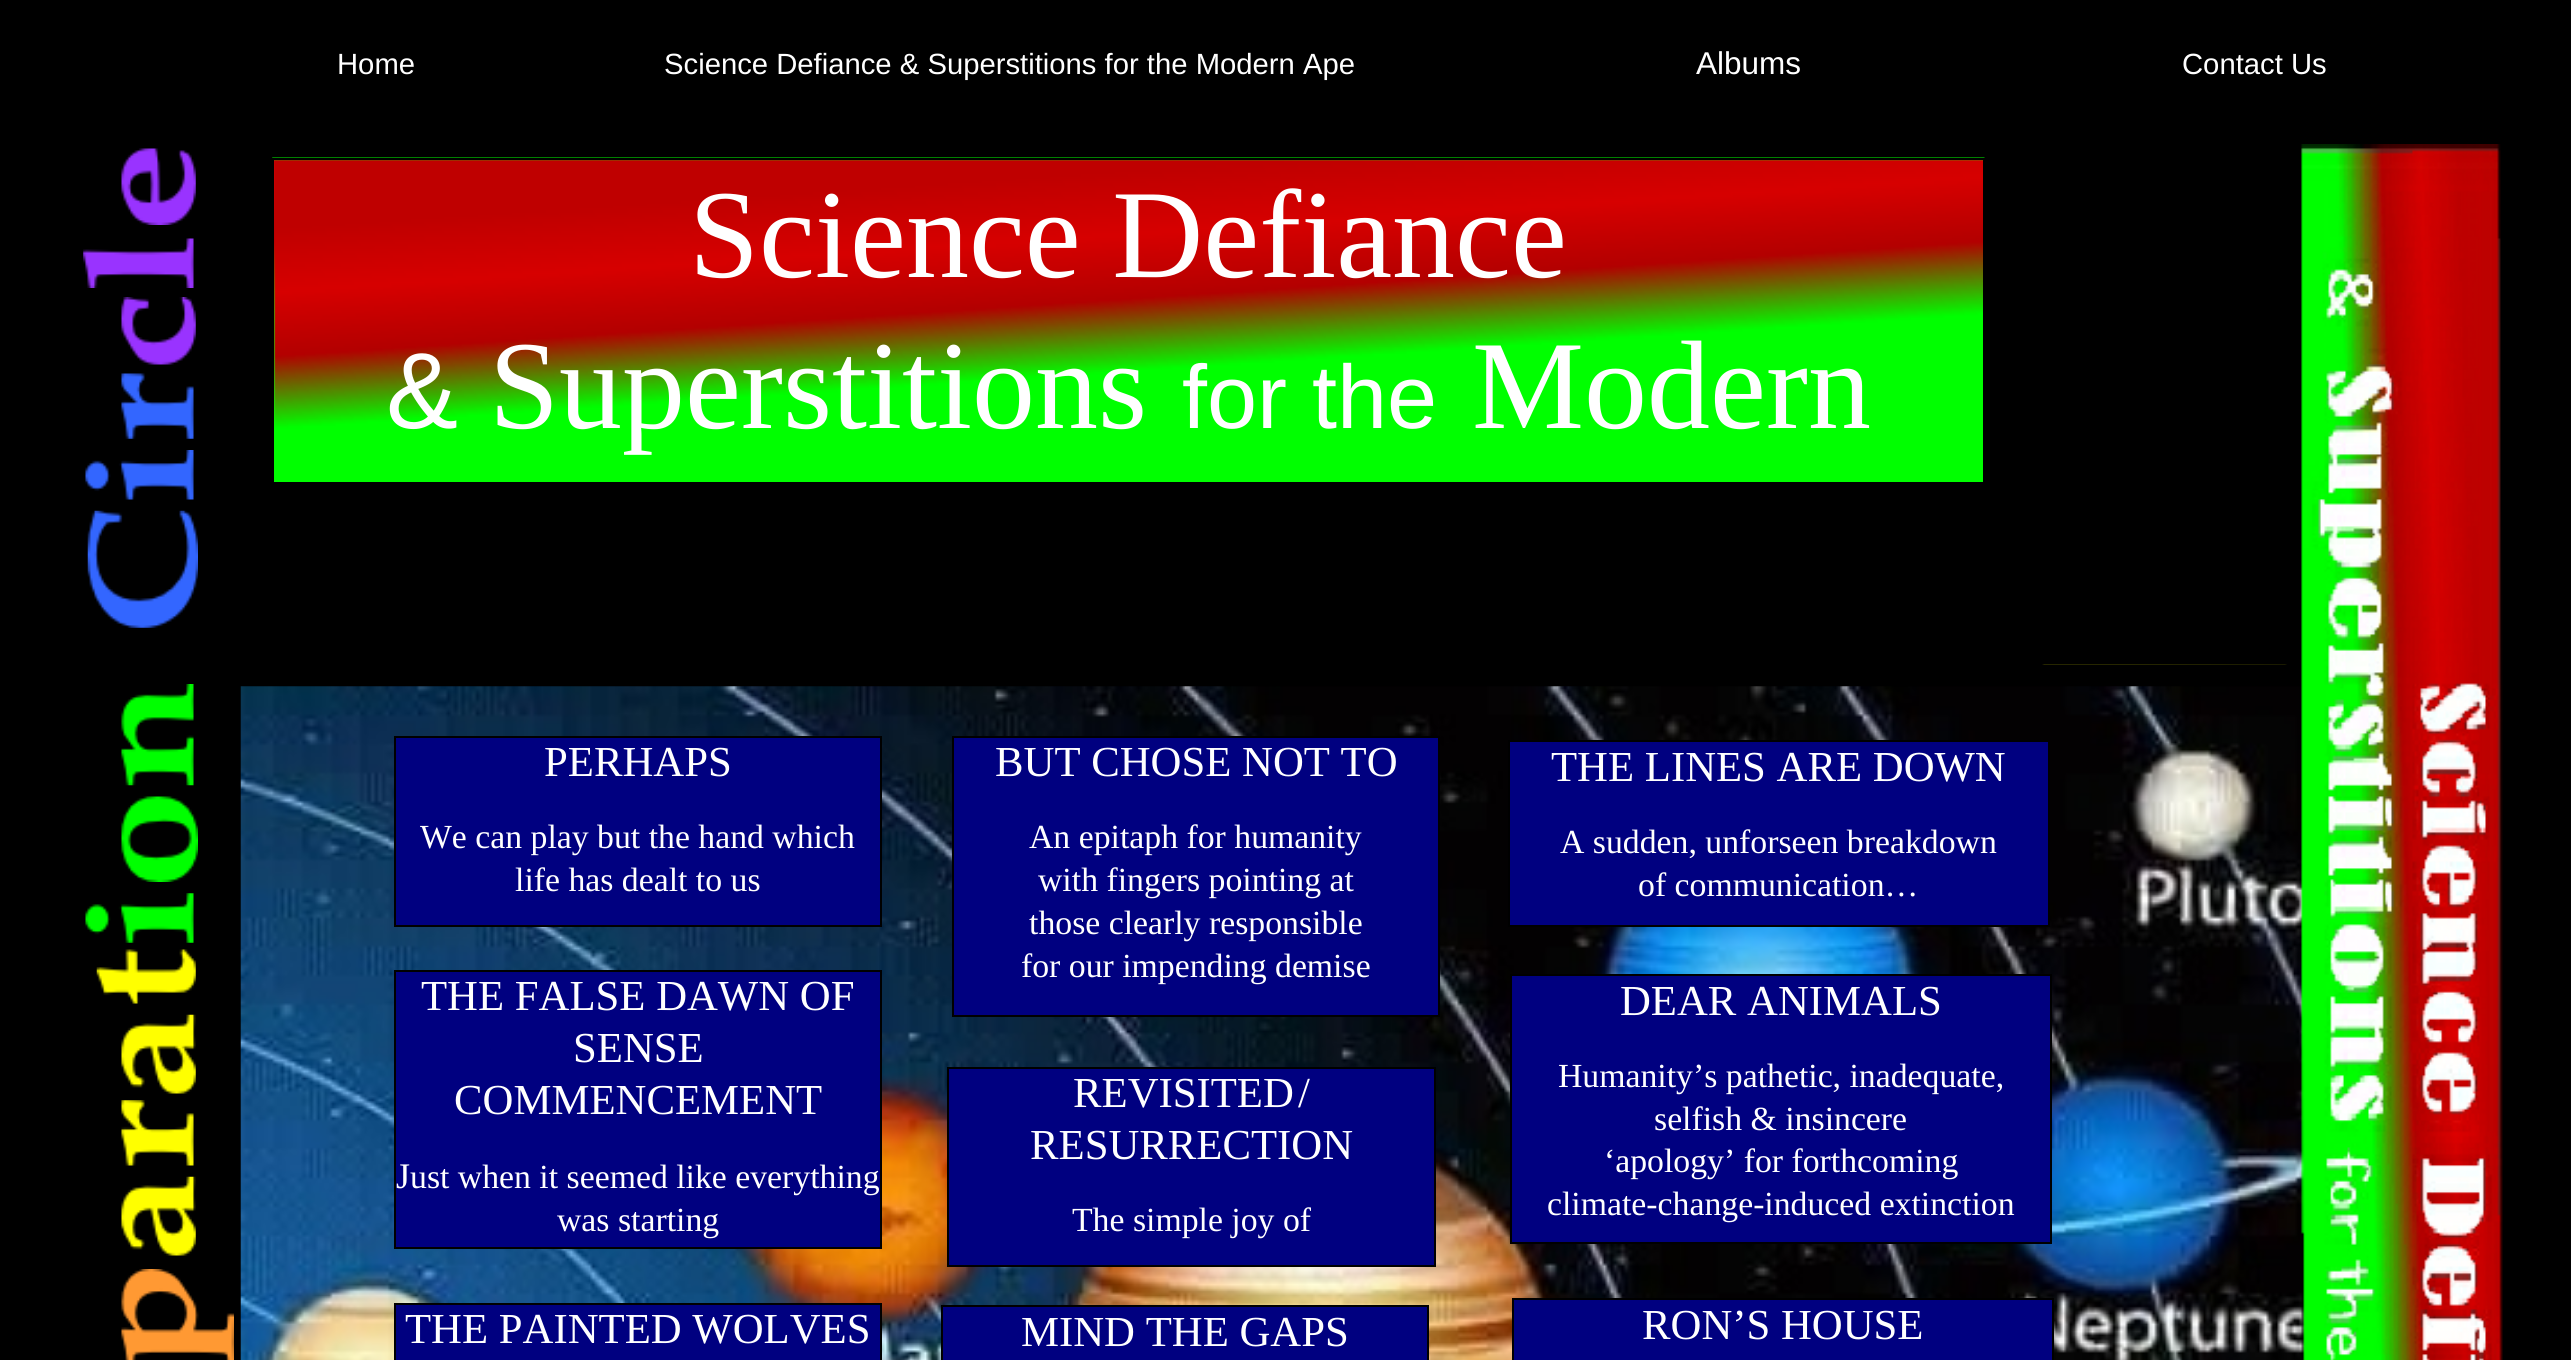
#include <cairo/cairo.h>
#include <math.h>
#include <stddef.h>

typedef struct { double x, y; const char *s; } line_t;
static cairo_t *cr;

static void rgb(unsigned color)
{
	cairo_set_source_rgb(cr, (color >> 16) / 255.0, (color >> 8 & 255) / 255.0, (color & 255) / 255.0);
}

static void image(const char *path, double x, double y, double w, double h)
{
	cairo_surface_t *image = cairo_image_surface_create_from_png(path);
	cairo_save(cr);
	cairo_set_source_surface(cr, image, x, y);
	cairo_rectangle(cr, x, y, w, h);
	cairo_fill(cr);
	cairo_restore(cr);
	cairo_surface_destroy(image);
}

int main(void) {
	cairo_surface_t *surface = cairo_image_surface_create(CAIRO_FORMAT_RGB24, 2571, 1360);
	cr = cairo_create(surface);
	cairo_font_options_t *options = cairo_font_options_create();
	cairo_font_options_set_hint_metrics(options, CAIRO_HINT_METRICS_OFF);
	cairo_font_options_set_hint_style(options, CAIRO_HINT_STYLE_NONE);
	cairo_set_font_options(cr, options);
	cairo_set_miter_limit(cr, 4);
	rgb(0x000000);
	cairo_paint(cr);
	image("img/1.png", 121, 148, 75, 77);
	image("img/2.png", 272, 157, 1713, 325);
	cairo_rectangle(cr, 273, 159, 1711, 324);
	rgb(0x000000);
	cairo_stroke(cr);
	image("img/11.png", 240, 686, 2065, 674);
	image("img/3.png", 2299, 144, 204, 1216);
	image("img/4.png", 83, 238, 111, 50);
	image("img/5.png", 121, 297, 75, 68);
	image("img/6.png", 121, 373, 73, 66);
	image("img/7.png", 85, 450, 109, 50);
	image("img/8.png", 87, 510, 111, 118);
	image("img/9.png", 2042, 664, 245, 1);
	image("img/10.png", 121, 684, 73, 102);
	image("img/12.png", 121, 796, 77, 86);
	rgb(0x000080);
	cairo_rectangle(cr, 395, 737, 486, 189);
	cairo_fill_preserve(cr);
	rgb(0x000000);
	cairo_stroke(cr);
	rgb(0x000080);
	cairo_rectangle(cr, 953, 737, 486, 279);
	cairo_fill_preserve(cr);
	rgb(0x000000);
	cairo_stroke(cr);
	rgb(0x000080);
	cairo_rectangle(cr, 1509, 741, 540, 185);
	cairo_fill_preserve(cr);
	rgb(0x000000);
	cairo_stroke(cr);
	image("img/13.png", 85, 893, 109, 50);
	image("img/14.png", 96, 949, 100, 55);
	rgb(0x000080);
	cairo_rectangle(cr, 395, 971, 486, 277);
	cairo_fill_preserve(cr);
	rgb(0x000000);
	cairo_stroke(cr);
	rgb(0x000080);
	cairo_rectangle(cr, 1511, 975, 540, 268);
	cairo_fill_preserve(cr);
	rgb(0x000000);
	cairo_stroke(cr);
	image("img/15.png", 121, 1014, 75, 80);
	image("img/16.png", 121, 1100, 73, 66);
	rgb(0x000080);
	cairo_rectangle(cr, 948, 1068, 487, 198);
	cairo_fill_preserve(cr);
	rgb(0x000000);
	cairo_stroke(cr);
	image("img/17.png", 121, 1176, 75, 80);
	image("img/18.png", 121, 1269, 113, 91);
	rgb(0x000080);
	cairo_rectangle(cr, 395, 1304, 486, 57);
	cairo_fill_preserve(cr);
	rgb(0x000000);
	cairo_stroke(cr);
	rgb(0x000080);
	cairo_rectangle(cr, 942, 1306, 486, 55);
	cairo_fill_preserve(cr);
	rgb(0x000000);
	cairo_stroke(cr);
	rgb(0x000080);
	cairo_rectangle(cr, 1513, 1299, 540, 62);
	cairo_fill_preserve(cr);
	rgb(0x000000);
	cairo_stroke(cr);
	cairo_select_font_face(cr, "Liberation Sans", CAIRO_FONT_SLANT_NORMAL, CAIRO_FONT_WEIGHT_NORMAL);
	cairo_set_font_size(cr, 29.25);
	rgb(0xffffff);
	cairo_move_to(cr, 337, 74);
	cairo_show_text(cr, "Home");
	cairo_move_to(cr, 664, 74);
	cairo_show_text(cr, "Science Defiance & Superstitions for the Modern Ape");
	cairo_set_font_size(cr, 31.5);
	cairo_move_to(cr, 1696, 74);
	cairo_show_text(cr, "Albums");
	cairo_set_font_size(cr, 29.25);
	cairo_move_to(cr, 2182, 74);
	cairo_show_text(cr, "Contact Us");
	cairo_select_font_face(cr, "Liberation Serif", CAIRO_FONT_SLANT_NORMAL, CAIRO_FONT_WEIGHT_NORMAL);
	cairo_set_font_size(cr, 126);
	cairo_move_to(cr, 689, 277);
	cairo_show_text(cr, "Science Defiance");
	cairo_select_font_face(cr, "Liberation Sans", CAIRO_FONT_SLANT_NORMAL, CAIRO_FONT_WEIGHT_NORMAL);
	cairo_set_font_size(cr, 108);
	cairo_move_to(cr, 386, 428);
	cairo_show_text(cr, "&");
	cairo_select_font_face(cr, "Liberation Serif", CAIRO_FONT_SLANT_NORMAL, CAIRO_FONT_WEIGHT_NORMAL);
	cairo_set_font_size(cr, 126);
	cairo_move_to(cr, 489, 428);
	cairo_show_text(cr, "Superstitions");
	cairo_select_font_face(cr, "Liberation Sans", CAIRO_FONT_SLANT_NORMAL, CAIRO_FONT_WEIGHT_NORMAL);
	cairo_set_font_size(cr, 90);
	cairo_move_to(cr, 1182, 428);
	cairo_show_text(cr, "for the");
	cairo_select_font_face(cr, "Liberation Serif", CAIRO_FONT_SLANT_NORMAL, CAIRO_FONT_WEIGHT_NORMAL);
	cairo_set_font_size(cr, 126);
	cairo_move_to(cr, 1472, 428);
	cairo_show_text(cr, "Modern");
	cairo_set_font_size(cr, 42.75);
	cairo_move_to(cr, 544, 776);
	cairo_show_text(cr, "PERHAPS");
	cairo_set_font_size(cr, 33.75);
	cairo_move_to(cr, 420, 848);
	cairo_show_text(cr, "We can play but the hand which");
	cairo_move_to(cr, 515, 891);
	cairo_show_text(cr, "life has dealt to us");
	cairo_set_font_size(cr, 42.75);
	cairo_move_to(cr, 995, 776);
	cairo_show_text(cr, "BUT CHOSE NOT TO");
	cairo_set_font_size(cr, 33.75);
	{
		static const line_t items[] = {
			{1029, 848, "An epitaph for humanity"},
			{1038, 891, "with fingers pointing at"},
			{1029, 934, "those clearly responsible"},
			{1021, 977, "for our impending demise"},
		};
		for (size_t i = 0; i < sizeof items / sizeof *items; i++) {
			cairo_move_to(cr, items[i].x, items[i].y);
			cairo_show_text(cr, items[i].s);
		}
	}
	cairo_set_font_size(cr, 42.75);
	cairo_move_to(cr, 1551, 781);
	cairo_show_text(cr, "THE LINES ARE DOWN");
	cairo_set_font_size(cr, 33.75);
	cairo_move_to(cr, 1560, 853);
	cairo_show_text(cr, "A sudden, unforseen breakdown");
	cairo_move_to(cr, 1638, 896);
	cairo_show_text(cr, "of communication…");
	cairo_set_font_size(cr, 42.75);
	{
		static const line_t items[] = {
			{421, 1010, "THE FALSE DAWN OF"},
			{573, 1062, "SENSE"},
			{454, 1114, "COMMENCEMENT"},
		};
		for (size_t i = 0; i < sizeof items / sizeof *items; i++) {
			cairo_move_to(cr, items[i].x, items[i].y);
			cairo_show_text(cr, items[i].s);
		}
	}
	cairo_set_font_size(cr, 36);
	cairo_move_to(cr, 396, 1188);
	cairo_show_text(cr, "J");
	cairo_set_font_size(cr, 33.75);
	cairo_move_to(cr, 410, 1188);
	cairo_show_text(cr, "ust when it seemed like everything");
	cairo_move_to(cr, 557, 1231);
	cairo_show_text(cr, "was starting");
	cairo_set_font_size(cr, 42.75);
	cairo_move_to(cr, 1620, 1015);
	cairo_show_text(cr, "DEAR ANIMALS");
	cairo_set_font_size(cr, 33.75);
	{
		static const line_t items[] = {
			{1558, 1087, "Humanity’s pathetic, inadequate,"},
			{1654, 1130, "selfish & insincere"},
			{1604, 1172, "‘apology’ for forthcoming"},
			{1547, 1215, "climate-change-induced extinction"},
		};
		for (size_t i = 0; i < sizeof items / sizeof *items; i++) {
			cairo_move_to(cr, items[i].x, items[i].y);
			cairo_show_text(cr, items[i].s);
		}
	}
	cairo_set_font_size(cr, 42.75);
	{
		static const line_t items[] = {
			{1073, 1107, "REVISITED"},
			{1298, 1107, "/"},
			{1030, 1159, "RESURRECTION"},
		};
		for (size_t i = 0; i < sizeof items / sizeof *items; i++) {
			cairo_move_to(cr, items[i].x, items[i].y);
			cairo_show_text(cr, items[i].s);
		}
	}
	cairo_set_font_size(cr, 33.75);
	cairo_move_to(cr, 1072, 1231);
	cairo_show_text(cr, "The simple joy of");
	cairo_set_font_size(cr, 42.75);
	{
		static const line_t items[] = {
			{405, 1343, "THE PAINTED WOLVES"},
			{1021, 1346, "MIND THE GAPS"},
			{1642, 1339, "RON’S HOUSE"},
		};
		for (size_t i = 0; i < sizeof items / sizeof *items; i++) {
			cairo_move_to(cr, items[i].x, items[i].y);
			cairo_show_text(cr, items[i].s);
		}
	}
	cairo_surface_write_to_png(surface, "page.png");
	cairo_font_options_destroy(options);
	cairo_destroy(cr);
	cairo_surface_destroy(surface);
	return 0;
}
